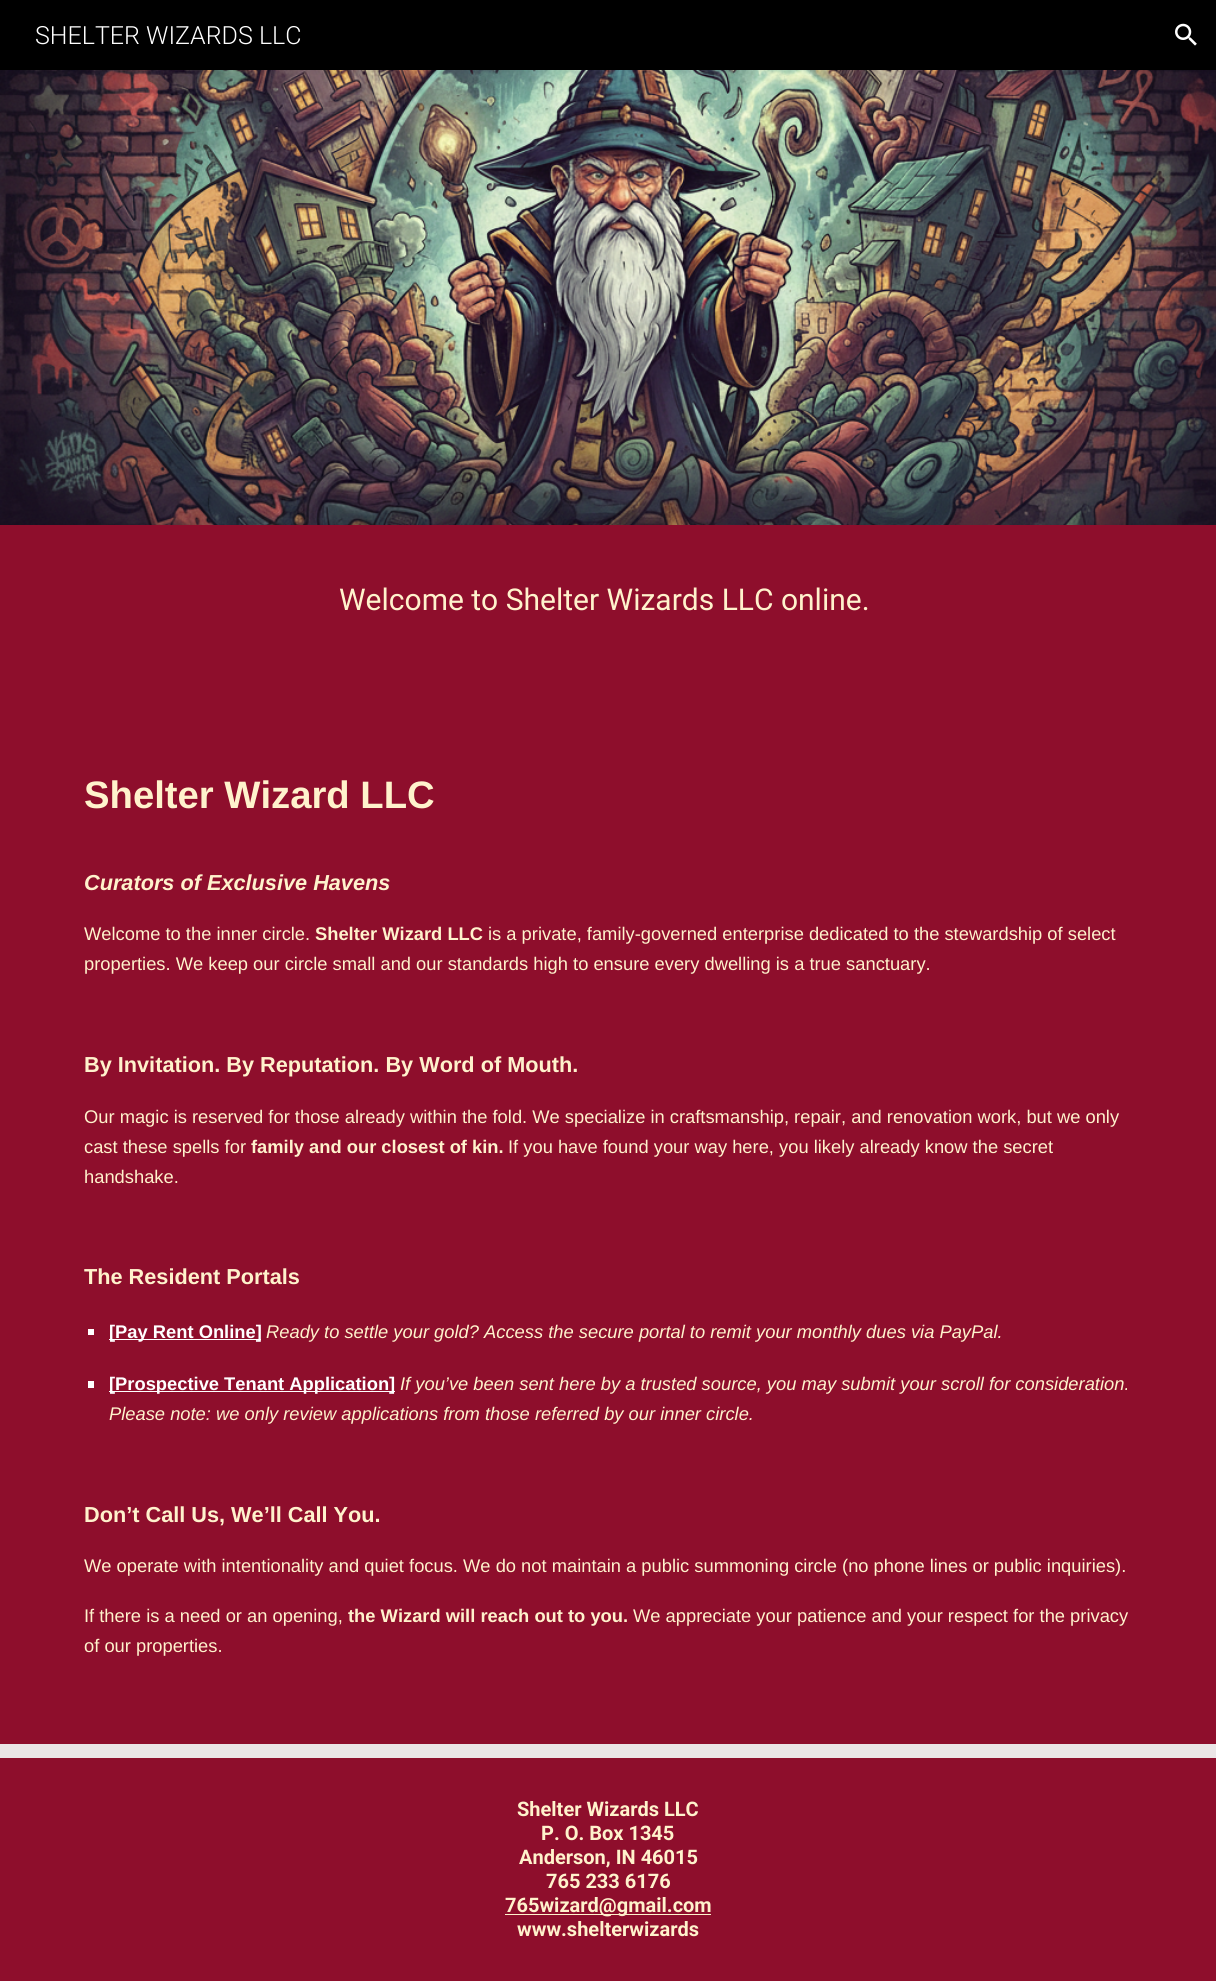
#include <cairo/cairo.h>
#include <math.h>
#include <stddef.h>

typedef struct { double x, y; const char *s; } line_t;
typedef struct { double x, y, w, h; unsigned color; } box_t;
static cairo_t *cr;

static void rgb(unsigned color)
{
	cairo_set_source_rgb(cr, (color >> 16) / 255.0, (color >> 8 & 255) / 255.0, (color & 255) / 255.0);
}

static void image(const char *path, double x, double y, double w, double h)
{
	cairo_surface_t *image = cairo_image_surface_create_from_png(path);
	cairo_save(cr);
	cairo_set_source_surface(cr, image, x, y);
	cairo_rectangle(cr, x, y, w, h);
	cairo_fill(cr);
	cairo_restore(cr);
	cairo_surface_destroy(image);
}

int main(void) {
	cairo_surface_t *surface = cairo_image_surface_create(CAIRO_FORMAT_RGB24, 1216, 1981);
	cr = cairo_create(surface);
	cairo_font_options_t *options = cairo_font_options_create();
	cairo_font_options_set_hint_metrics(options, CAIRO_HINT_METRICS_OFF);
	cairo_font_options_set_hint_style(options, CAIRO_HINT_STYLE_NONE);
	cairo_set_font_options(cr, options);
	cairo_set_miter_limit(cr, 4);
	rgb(0xebe5e6);
	cairo_paint(cr);
	rgb(0x000000);
	cairo_rectangle(cr, 0, 0, 1216, 70);
	cairo_fill(cr);
	image("img/1.png", 1175, 23, 22, 23);
	image("img/2.png", 0, 70, 1216, 455);
	{
		static const box_t items[] = {
			{0, 525, 1216, 1219, 0x8e0e2c},
			{88, 1329, 6, 6, 0xffffff},
			{109, 1339, 152, 1, 0xffffff},
			{88, 1381, 6, 7, 0xffffff},
			{109, 1391, 286, 1, 0xffffff},
			{0, 1758, 1216, 223, 0x8e0e2c},
			{505, 1914, 206, 1, 0xfff2cc},
		};
		for (size_t i = 0; i < sizeof items / sizeof *items; i++) {
			rgb(items[i].color);
			cairo_rectangle(cr, items[i].x, items[i].y, items[i].w, items[i].h);
			cairo_fill(cr);
		}
	}
	cairo_select_font_face(cr, "Roboto Light", CAIRO_FONT_SLANT_NORMAL, CAIRO_FONT_WEIGHT_NORMAL);
	cairo_set_font_size(cr, 25);
	rgb(0xffffff);
	cairo_move_to(cr, 35, 44);
	cairo_show_text(cr, "SHELTER WIZARDS LLC");
	cairo_select_font_face(cr, "Roboto", CAIRO_FONT_SLANT_NORMAL, CAIRO_FONT_WEIGHT_NORMAL);
	cairo_set_font_size(cr, 30);
	rgb(0xfff2cc);
	cairo_move_to(cr, 339, 610);
	cairo_show_text(cr, "Welcome to Shelter Wizards LLC online.");
	cairo_select_font_face(cr, "Liberation Sans", CAIRO_FONT_SLANT_NORMAL, CAIRO_FONT_WEIGHT_BOLD);
	cairo_set_font_size(cr, 38.25);
	cairo_move_to(cr, 84, 808);
	cairo_show_text(cr, "Shelter Wizard LLC");
	cairo_select_font_face(cr, "Liberation Sans", CAIRO_FONT_SLANT_ITALIC, CAIRO_FONT_WEIGHT_BOLD);
	cairo_set_font_size(cr, 21.7);
	cairo_move_to(cr, 84, 890);
	cairo_show_text(cr, "Curators of Exclusive Havens");
	cairo_select_font_face(cr, "Liberation Sans", CAIRO_FONT_SLANT_NORMAL, CAIRO_FONT_WEIGHT_NORMAL);
	cairo_set_font_size(cr, 18.33);
	cairo_move_to(cr, 84, 940);
	cairo_show_text(cr, "Welcome to the inner circle.");
	cairo_select_font_face(cr, "Liberation Sans", CAIRO_FONT_SLANT_NORMAL, CAIRO_FONT_WEIGHT_BOLD);
	cairo_move_to(cr, 315, 940);
	cairo_show_text(cr, "Shelter Wizard LLC");
	cairo_select_font_face(cr, "Liberation Sans", CAIRO_FONT_SLANT_NORMAL, CAIRO_FONT_WEIGHT_NORMAL);
	cairo_move_to(cr, 488, 940);
	cairo_show_text(cr, "is a private, family-governed enterprise dedicated to the stewardship of select");
	cairo_move_to(cr, 84, 970);
	cairo_show_text(cr, "properties. We keep our circle small and our standards high to ensure every dwelling is a true sanctuary.");
	cairo_select_font_face(cr, "Liberation Sans", CAIRO_FONT_SLANT_NORMAL, CAIRO_FONT_WEIGHT_BOLD);
	cairo_set_font_size(cr, 21.7);
	cairo_move_to(cr, 84, 1072);
	cairo_show_text(cr, "By Invitation. By Reputation. By Word of Mouth.");
	cairo_select_font_face(cr, "Liberation Sans", CAIRO_FONT_SLANT_NORMAL, CAIRO_FONT_WEIGHT_NORMAL);
	cairo_set_font_size(cr, 18.33);
	cairo_move_to(cr, 84, 1123);
	cairo_show_text(cr, "Our magic is reserved for those already within the fold. We specialize in craftsmanship, repair, and renovation work, but we only");
	cairo_move_to(cr, 84, 1153);
	cairo_show_text(cr, "cast these spells for");
	cairo_select_font_face(cr, "Liberation Sans", CAIRO_FONT_SLANT_NORMAL, CAIRO_FONT_WEIGHT_BOLD);
	cairo_move_to(cr, 251, 1153);
	cairo_show_text(cr, "family and our closest of kin.");
	cairo_select_font_face(cr, "Liberation Sans", CAIRO_FONT_SLANT_NORMAL, CAIRO_FONT_WEIGHT_NORMAL);
	cairo_move_to(cr, 508, 1153);
	cairo_show_text(cr, "If you have found your way here, you likely already know the secret");
	cairo_move_to(cr, 84, 1183);
	cairo_show_text(cr, "handshake.");
	cairo_select_font_face(cr, "Liberation Sans", CAIRO_FONT_SLANT_NORMAL, CAIRO_FONT_WEIGHT_BOLD);
	cairo_set_font_size(cr, 21.7);
	cairo_move_to(cr, 84, 1284);
	cairo_show_text(cr, "The Resident Portals");
	cairo_set_font_size(cr, 18.33);
	rgb(0xffffff);
	cairo_move_to(cr, 109, 1338);
	cairo_show_text(cr, "[Pay Rent Online]");
	cairo_select_font_face(cr, "Liberation Sans", CAIRO_FONT_SLANT_ITALIC, CAIRO_FONT_WEIGHT_NORMAL);
	rgb(0xfff2cc);
	cairo_move_to(cr, 266, 1338);
	cairo_show_text(cr, "Ready to settle your gold? Access the secure portal to remit your monthly dues via PayPal.");
	cairo_select_font_face(cr, "Liberation Sans", CAIRO_FONT_SLANT_NORMAL, CAIRO_FONT_WEIGHT_BOLD);
	rgb(0xffffff);
	cairo_move_to(cr, 109, 1390);
	cairo_show_text(cr, "[Prospective Tenant Application]");
	cairo_select_font_face(cr, "Liberation Sans", CAIRO_FONT_SLANT_ITALIC, CAIRO_FONT_WEIGHT_NORMAL);
	rgb(0xfff2cc);
	cairo_move_to(cr, 400, 1390);
	cairo_show_text(cr, "If you’ve been sent here by a trusted source, you may submit your scroll for consideration.");
	cairo_move_to(cr, 109, 1420);
	cairo_show_text(cr, "Please note: we only review applications from those referred by our inner circle.");
	cairo_select_font_face(cr, "Liberation Sans", CAIRO_FONT_SLANT_NORMAL, CAIRO_FONT_WEIGHT_BOLD);
	cairo_set_font_size(cr, 21.7);
	cairo_move_to(cr, 84, 1522);
	cairo_show_text(cr, "Don’t Call Us, We’ll Call You.");
	cairo_select_font_face(cr, "Liberation Sans", CAIRO_FONT_SLANT_NORMAL, CAIRO_FONT_WEIGHT_NORMAL);
	cairo_set_font_size(cr, 18.33);
	cairo_move_to(cr, 84, 1572);
	cairo_show_text(cr, "We operate with intentionality and quiet focus. We do not maintain a public summoning circle (no phone lines or public inquiries).");
	cairo_move_to(cr, 84, 1622);
	cairo_show_text(cr, "If there is a need or an opening,");
	cairo_select_font_face(cr, "Liberation Sans", CAIRO_FONT_SLANT_NORMAL, CAIRO_FONT_WEIGHT_BOLD);
	cairo_move_to(cr, 348, 1622);
	cairo_show_text(cr, "the Wizard will reach out to you.");
	cairo_select_font_face(cr, "Liberation Sans", CAIRO_FONT_SLANT_NORMAL, CAIRO_FONT_WEIGHT_NORMAL);
	cairo_move_to(cr, 633, 1622);
	cairo_show_text(cr, "We appreciate your patience and your respect for the privacy");
	cairo_move_to(cr, 84, 1652);
	cairo_show_text(cr, "of our properties.");
	cairo_select_font_face(cr, "Roboto", CAIRO_FONT_SLANT_NORMAL, CAIRO_FONT_WEIGHT_BOLD);
	cairo_set_font_size(cr, 20);
	{
		static const line_t items[] = {
			{517, 1816, "Shelter Wizards LLC"},
			{541, 1840, "P. O. Box 1345"},
			{519, 1864, "Anderson, IN 46015"},
			{546, 1888, "765 233 6176"},
			{505, 1912, "765wizard@gmail.com"},
			{517, 1936, "www.shelterwizards"},
		};
		for (size_t i = 0; i < sizeof items / sizeof *items; i++) {
			cairo_move_to(cr, items[i].x, items[i].y);
			cairo_show_text(cr, items[i].s);
		}
	}
	cairo_surface_write_to_png(surface, "page.png");
	cairo_font_options_destroy(options);
	cairo_destroy(cr);
	cairo_surface_destroy(surface);
	return 0;
}
